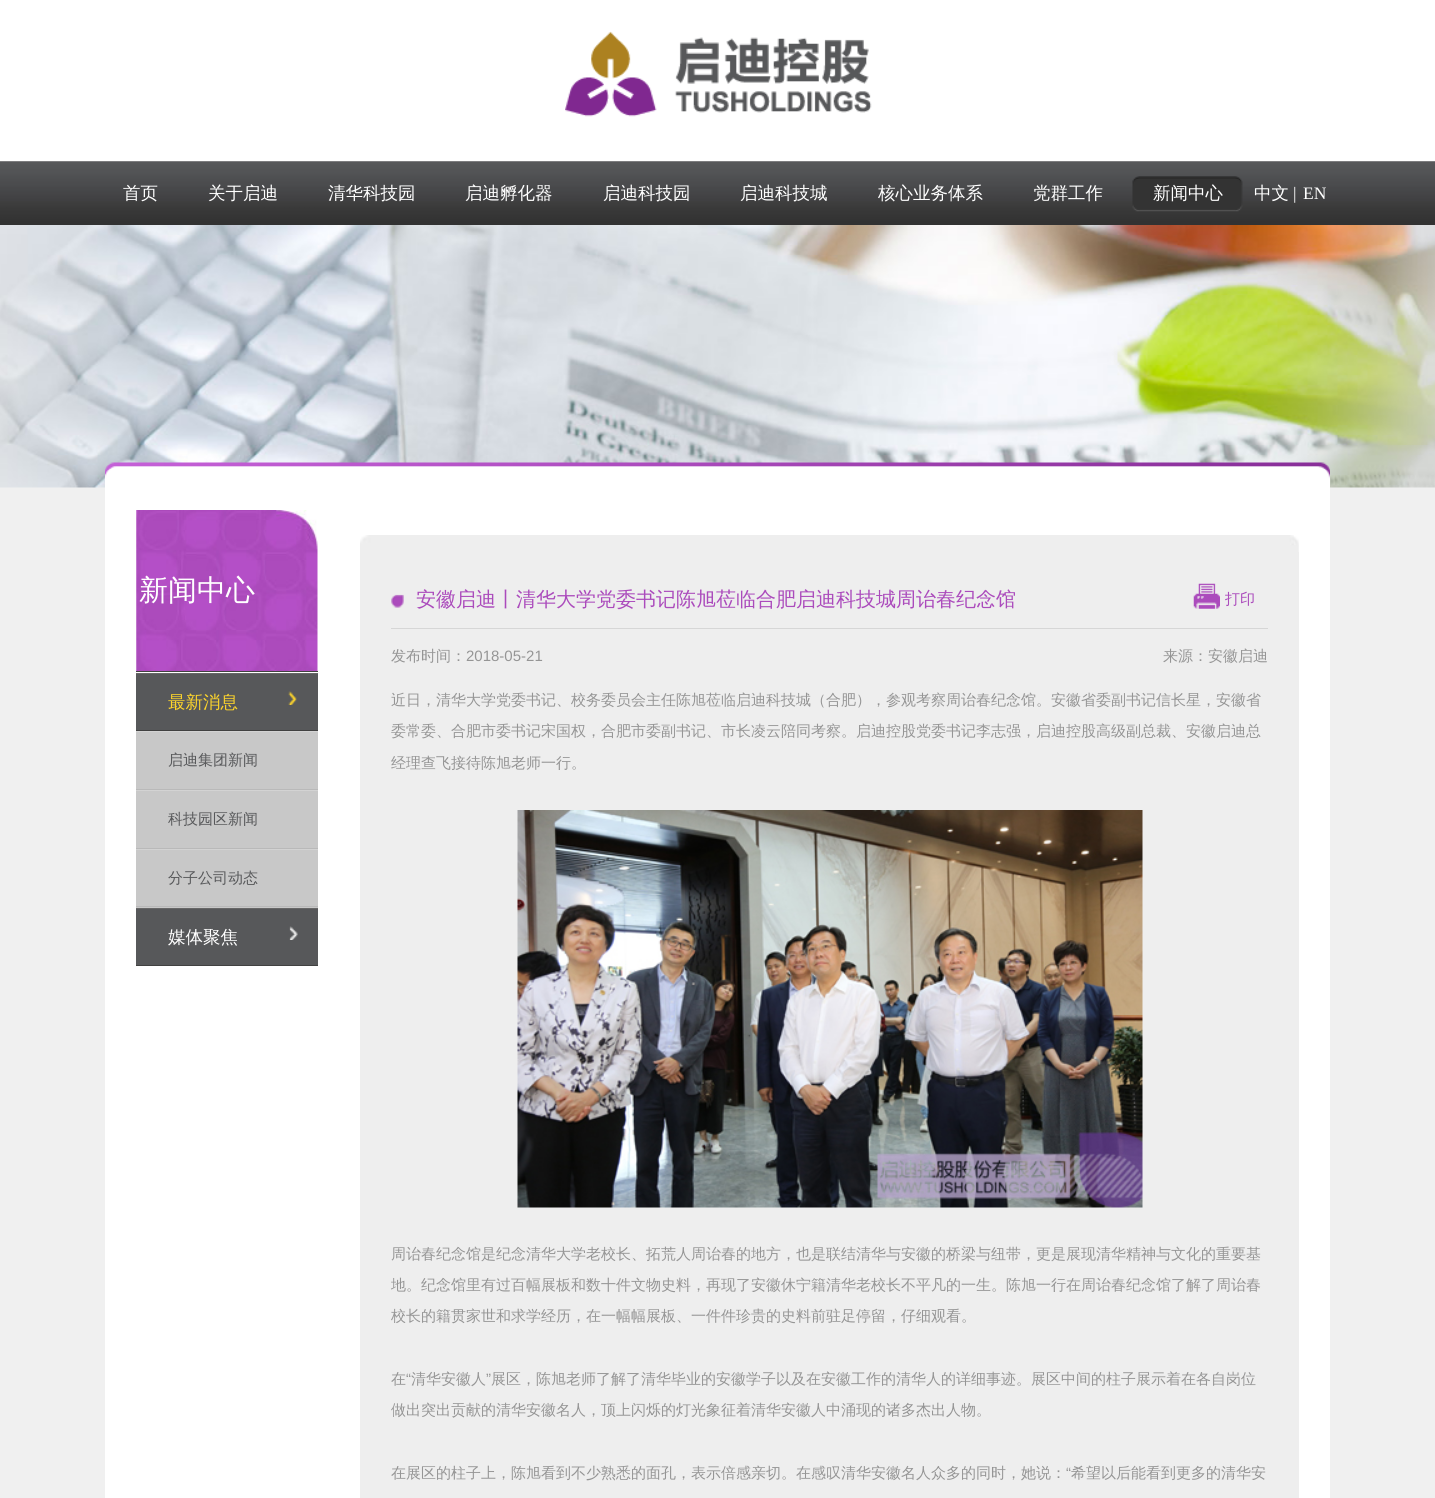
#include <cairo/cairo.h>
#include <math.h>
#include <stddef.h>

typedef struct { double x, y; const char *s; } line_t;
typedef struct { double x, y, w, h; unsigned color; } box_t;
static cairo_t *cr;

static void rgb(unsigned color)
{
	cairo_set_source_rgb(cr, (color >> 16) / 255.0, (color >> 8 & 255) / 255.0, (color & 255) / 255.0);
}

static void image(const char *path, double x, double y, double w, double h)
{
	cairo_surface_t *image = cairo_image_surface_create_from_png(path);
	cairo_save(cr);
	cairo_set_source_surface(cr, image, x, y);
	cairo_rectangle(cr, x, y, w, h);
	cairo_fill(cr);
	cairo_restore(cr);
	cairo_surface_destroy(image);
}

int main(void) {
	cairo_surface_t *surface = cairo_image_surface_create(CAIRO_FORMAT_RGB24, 1435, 1498);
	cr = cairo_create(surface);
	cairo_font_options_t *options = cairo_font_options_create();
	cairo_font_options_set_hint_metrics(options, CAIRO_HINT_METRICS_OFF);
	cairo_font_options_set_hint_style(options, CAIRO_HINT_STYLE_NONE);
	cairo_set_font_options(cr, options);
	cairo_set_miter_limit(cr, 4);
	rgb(0xf0f0f0);
	cairo_paint(cr);
	rgb(0xffffff);
	cairo_rectangle(cr, 0, 0, 1435, 161);
	cairo_fill(cr);
	image("img/1.png", 565, 31, 307, 86);
	image("img/2.png", 0, 161, 1435, 64);
	image("img/3.png", 1132, 176, 8, 36);
	image("img/4.png", 1140, 176, 95, 36);
	image("img/5.png", 1235, 176, 8, 36);
	image("img/6.png", 0, 225, 1435, 263);
	image("img/7.png", 105, 462, 1225, 23);
	cairo_rectangle(cr, 105, 485, 1225, 1013);
	cairo_fill(cr);
	image("img/8.png", 136, 510, 182, 161);
	{
		static const box_t items[] = {
			{136, 671, 182, 1, 0x414141},
			{136, 674, 182, 56, 0x57585a},
			{136, 673, 182, 1, 0x676767},
			{136, 730, 182, 1, 0x414141},
		};
		for (size_t i = 0; i < sizeof items / sizeof *items; i++) {
			rgb(items[i].color);
			cairo_rectangle(cr, items[i].x, items[i].y, items[i].w, items[i].h);
			cairo_fill(cr);
		}
	}
	image("img/9.png", 288, 691, 9, 14);
	{
		static const box_t items[] = {
			{136, 732, 182, 176, 0xc8c8c8},
			{136, 731, 182, 1, 0xd3d3d3},
			{136, 789, 182, 1, 0xb9b9b9},
			{136, 790, 182, 1, 0xd3d3d3},
			{136, 848, 182, 1, 0xb9b9b9},
			{136, 849, 182, 1, 0xd3d3d3},
			{136, 906, 182, 1, 0xb9b9b9},
			{136, 909, 182, 56, 0x57585a},
			{136, 908, 182, 1, 0x676767},
			{136, 965, 182, 1, 0x414141},
		};
		for (size_t i = 0; i < sizeof items / sizeof *items; i++) {
			rgb(items[i].color);
			cairo_rectangle(cr, items[i].x, items[i].y, items[i].w, items[i].h);
			cairo_fill(cr);
		}
	}
	image("img/10.png", 289, 926, 9, 14);
	image("img/11.png", 360, 535, 939, 17);
	rgb(0xeeeeee);
	cairo_rectangle(cr, 360, 552, 939, 946);
	cairo_fill(cr);
	image("img/12.png", 391, 594, 13, 14);
	rgb(0xd6d6d6);
	cairo_rectangle(cr, 391, 628, 877, 1);
	cairo_fill(cr);
	image("img/13.png", 1193, 583, 27, 26);
	image("img/14.png", 517, 810, 626, 398);
	cairo_select_font_face(cr, "WenQuanYi Zen Hei Medium", CAIRO_FONT_SLANT_NORMAL, CAIRO_FONT_WEIGHT_NORMAL);
	cairo_set_font_size(cr, 17.5);
	rgb(0xffffff);
	{
		static const line_t items[] = {
			{123, 199, "首页"},
			{208, 199, "关于启迪"},
			{328, 199, "清华科技园"},
			{465, 199, "启迪孵化器"},
			{603, 199, "启迪科技园"},
			{740, 199, "启迪科技城"},
			{878, 199, "核心业务体系"},
			{1033, 199, "党群工作"},
			{1153, 199, "新闻中心"},
			{1254, 199, "中文"},
		};
		for (size_t i = 0; i < sizeof items / sizeof *items; i++) {
			cairo_move_to(cr, items[i].x, items[i].y);
			cairo_show_text(cr, items[i].s);
		}
	}
	cairo_select_font_face(cr, "Liberation Serif", CAIRO_FONT_SLANT_NORMAL, CAIRO_FONT_WEIGHT_NORMAL);
	cairo_move_to(cr, 1293, 199);
	cairo_show_text(cr, "|");
	cairo_move_to(cr, 1303, 199);
	cairo_show_text(cr, "EN");
	cairo_select_font_face(cr, "WenQuanYi Zen Hei Medium", CAIRO_FONT_SLANT_NORMAL, CAIRO_FONT_WEIGHT_NORMAL);
	cairo_set_font_size(cr, 29);
	cairo_move_to(cr, 139, 600);
	cairo_show_text(cr, "新闻中心");
	cairo_set_font_size(cr, 17.5);
	rgb(0xfed52b);
	cairo_move_to(cr, 168, 708);
	cairo_show_text(cr, "最新消息");
	cairo_set_font_size(cr, 15);
	rgb(0x57585a);
	{
		static const line_t items[] = {
			{168, 765, "启迪集团新闻"},
			{168, 824, "科技园区新闻"},
			{168, 883, "分子公司动态"},
		};
		for (size_t i = 0; i < sizeof items / sizeof *items; i++) {
			cairo_move_to(cr, items[i].x, items[i].y);
			cairo_show_text(cr, items[i].s);
		}
	}
	cairo_set_font_size(cr, 17.5);
	rgb(0xffffff);
	cairo_move_to(cr, 168, 943);
	cairo_show_text(cr, "媒体聚焦");
	cairo_set_font_size(cr, 20);
	rgb(0xab4bbc);
	cairo_move_to(cr, 416, 606);
	cairo_show_text(cr, "安徽启迪丨清华大学党委书记陈旭莅临合肥启迪科技城周诒春纪念馆");
	cairo_set_font_size(cr, 15);
	cairo_move_to(cr, 1225, 604);
	cairo_show_text(cr, "打印");
	rgb(0x959595);
	cairo_move_to(cr, 391, 661);
	cairo_show_text(cr, "发布时间：");
	cairo_select_font_face(cr, "Liberation Sans", CAIRO_FONT_SLANT_NORMAL, CAIRO_FONT_WEIGHT_NORMAL);
	cairo_move_to(cr, 466, 661);
	cairo_show_text(cr, "2018-05-21");
	cairo_select_font_face(cr, "WenQuanYi Zen Hei Medium", CAIRO_FONT_SLANT_NORMAL, CAIRO_FONT_WEIGHT_NORMAL);
	{
		static const line_t items[] = {
			{1163, 661, "来源：安徽启迪"},
			{391, 705, "近日，清华大学党委书记、校务委员会主任陈旭莅临启迪科技城（合肥），参观考察周诒春纪念馆。安徽省委副书记信长星，安徽省"},
			{391, 736, "委常委、合肥市委书记宋国权，合肥市委副书记、市长凌云陪同考察。启迪控股党委书记李志强，启迪控股高级副总裁、安徽启迪总"},
			{391, 768, "经理查飞接待陈旭老师一行。"},
			{391, 1259, "周诒春纪念馆是纪念清华大学老校长、拓荒人周诒春的地方，也是联结清华与安徽的桥梁与纽带，更是展现清华精神与文化的重要基"},
			{391, 1290, "地。纪念馆里有过百幅展板和数十件文物史料，再现了安徽休宁籍清华老校长不平凡的一生。陈旭一行在周诒春纪念馆了解了周诒春"},
			{391, 1321, "校长的籍贯家世和求学经历，在一幅幅展板、一件件珍贵的史料前驻足停留，仔细观看。"},
			{391, 1384, "在"},
		};
		for (size_t i = 0; i < sizeof items / sizeof *items; i++) {
			cairo_move_to(cr, items[i].x, items[i].y);
			cairo_show_text(cr, items[i].s);
		}
	}
	cairo_select_font_face(cr, "Liberation Sans", CAIRO_FONT_SLANT_NORMAL, CAIRO_FONT_WEIGHT_NORMAL);
	cairo_move_to(cr, 406, 1384);
	cairo_show_text(cr, "“");
	cairo_select_font_face(cr, "WenQuanYi Zen Hei Medium", CAIRO_FONT_SLANT_NORMAL, CAIRO_FONT_WEIGHT_NORMAL);
	cairo_move_to(cr, 411, 1384);
	cairo_show_text(cr, "清华安徽人");
	cairo_select_font_face(cr, "Liberation Sans", CAIRO_FONT_SLANT_NORMAL, CAIRO_FONT_WEIGHT_NORMAL);
	cairo_move_to(cr, 486, 1384);
	cairo_show_text(cr, "”");
	cairo_select_font_face(cr, "WenQuanYi Zen Hei Medium", CAIRO_FONT_SLANT_NORMAL, CAIRO_FONT_WEIGHT_NORMAL);
	{
		static const line_t items[] = {
			{491, 1384, "展区，陈旭老师了解了清华毕业的安徽学子以及在安徽工作的清华人的详细事迹。展区中间的柱子展示着在各自岗位"},
			{391, 1415, "做出突出贡献的清华安徽名人，顶上闪烁的灯光象征着清华安徽人中涌现的诸多杰出人物。"},
			{391, 1478, "在展区的柱子上，陈旭看到不少熟悉的面孔，表示倍感亲切。在感叹清华安徽名人众多的同时，她说："},
		};
		for (size_t i = 0; i < sizeof items / sizeof *items; i++) {
			cairo_move_to(cr, items[i].x, items[i].y);
			cairo_show_text(cr, items[i].s);
		}
	}
	cairo_select_font_face(cr, "Liberation Sans", CAIRO_FONT_SLANT_NORMAL, CAIRO_FONT_WEIGHT_NORMAL);
	cairo_move_to(cr, 1066, 1478);
	cairo_show_text(cr, "“");
	cairo_select_font_face(cr, "WenQuanYi Zen Hei Medium", CAIRO_FONT_SLANT_NORMAL, CAIRO_FONT_WEIGHT_NORMAL);
	cairo_move_to(cr, 1071, 1478);
	cairo_show_text(cr, "希望以后能看到更多的清华安");
	cairo_surface_write_to_png(surface, "page.png");
	cairo_font_options_destroy(options);
	cairo_destroy(cr);
	cairo_surface_destroy(surface);
	return 0;
}
